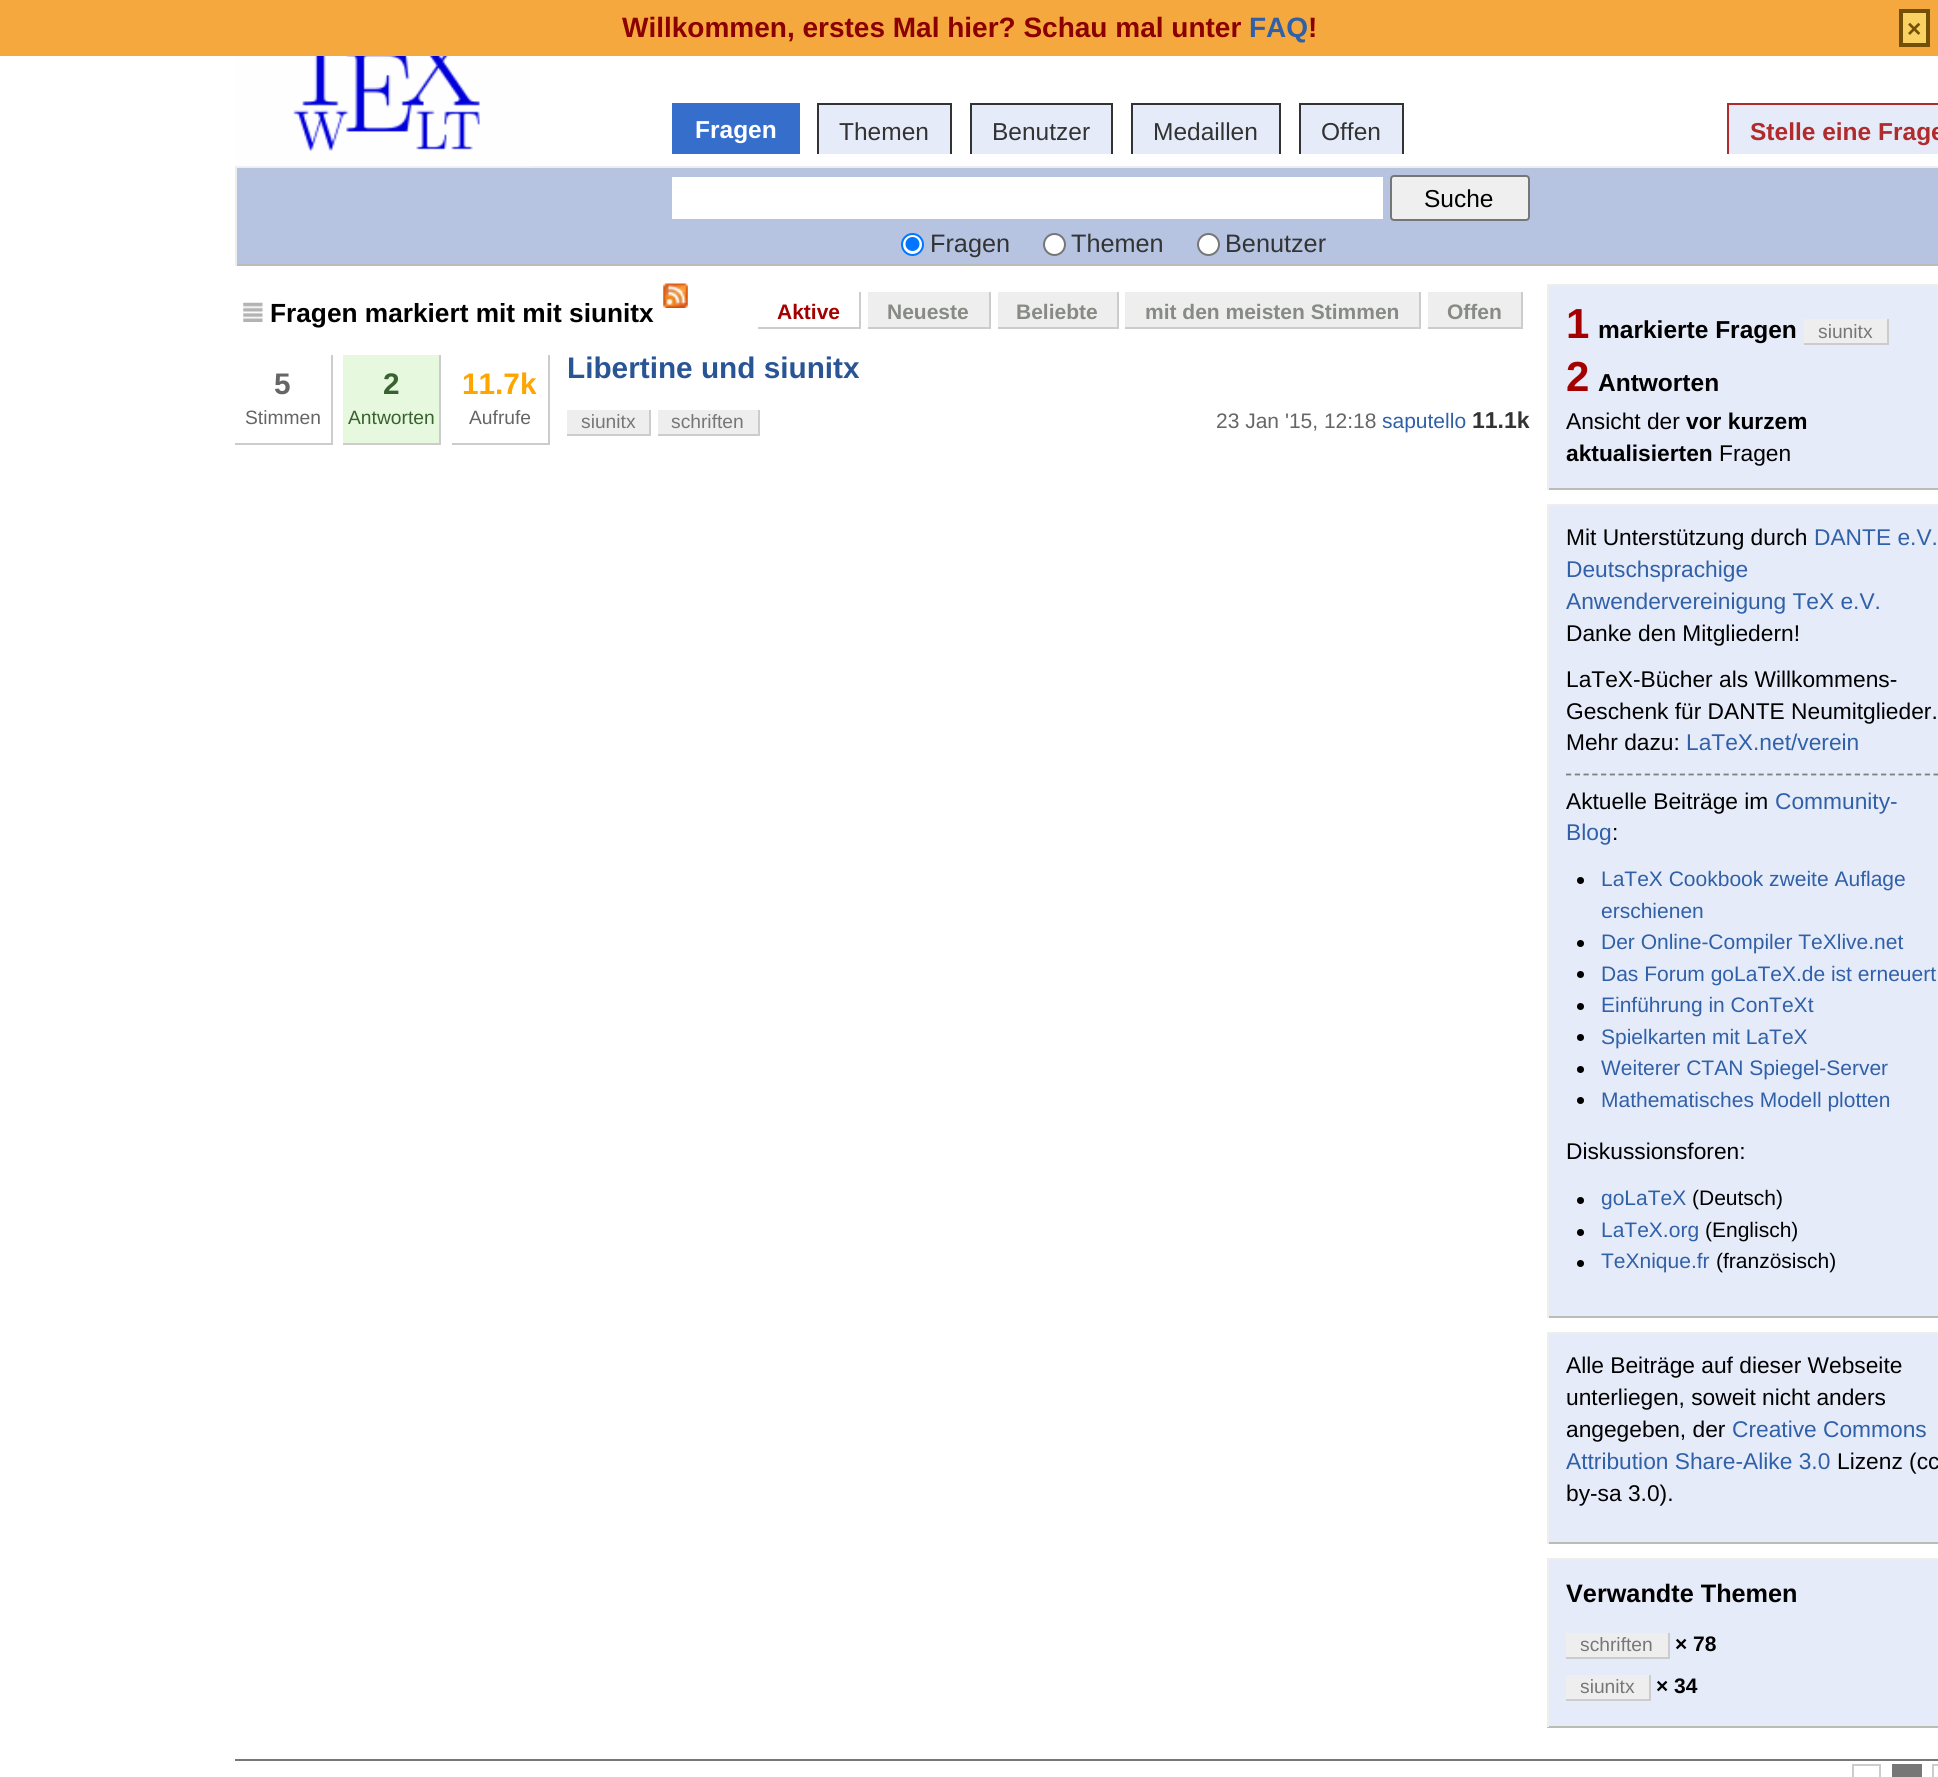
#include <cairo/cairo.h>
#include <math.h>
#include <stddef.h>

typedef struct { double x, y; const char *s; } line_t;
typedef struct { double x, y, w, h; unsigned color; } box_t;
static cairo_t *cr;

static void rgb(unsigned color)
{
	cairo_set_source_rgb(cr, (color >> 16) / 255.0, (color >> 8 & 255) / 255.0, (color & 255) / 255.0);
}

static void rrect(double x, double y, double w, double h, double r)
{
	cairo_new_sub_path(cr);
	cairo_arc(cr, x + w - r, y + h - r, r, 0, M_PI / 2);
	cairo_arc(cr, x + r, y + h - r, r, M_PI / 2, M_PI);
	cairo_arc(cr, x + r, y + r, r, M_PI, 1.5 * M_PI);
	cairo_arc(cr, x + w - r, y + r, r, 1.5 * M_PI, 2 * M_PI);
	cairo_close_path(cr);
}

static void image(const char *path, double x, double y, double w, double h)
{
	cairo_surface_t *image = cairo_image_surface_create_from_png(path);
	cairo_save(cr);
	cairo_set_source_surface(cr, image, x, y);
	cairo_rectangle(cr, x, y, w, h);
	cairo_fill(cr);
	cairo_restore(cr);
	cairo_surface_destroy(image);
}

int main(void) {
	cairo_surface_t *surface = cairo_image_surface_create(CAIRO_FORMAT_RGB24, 1938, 1777);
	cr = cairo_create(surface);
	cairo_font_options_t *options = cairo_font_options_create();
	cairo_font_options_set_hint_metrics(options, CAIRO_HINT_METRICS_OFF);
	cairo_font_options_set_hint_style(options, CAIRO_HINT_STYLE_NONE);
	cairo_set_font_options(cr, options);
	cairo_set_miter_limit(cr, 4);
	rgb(0xffffff);
	cairo_paint(cr);
	rgb(0xf4a83d);
	cairo_rectangle(cr, 0, 0, 1938, 56);
	cairo_fill(cr);
	rgb(0xfad163);
	cairo_rectangle(cr, 1901, 11, 27, 34);
	cairo_fill_preserve(cr);
	rgb(0x735005);
	cairo_set_line_width(cr, 4);
	cairo_stroke(cr);
	{
		static const box_t items[] = {
			{235, 166, 1703, 2, 0xeeeeec},
			{235, 264, 1703, 2, 0xbabdb6},
			{235, 166, 2, 100, 0xeeeeec},
		};
		for (size_t i = 0; i < sizeof items / sizeof *items; i++) {
			rgb(items[i].color);
			cairo_rectangle(cr, items[i].x, items[i].y, items[i].w, items[i].h);
			cairo_fill(cr);
		}
	}
	image("img/1.png", 235, 56, 295, 111);
	{
		static const box_t items[] = {
			{672, 103, 128, 51, 0x356fcb},
			{819, 105, 131, 49, 0xe5ebf8},
			{817, 103, 135, 2, 0x333333},
			{950, 103, 2, 51, 0x333333},
			{817, 103, 2, 51, 0x333333},
			{972, 105, 139, 49, 0xe5ebf8},
			{970, 103, 143, 2, 0x333333},
			{1111, 103, 2, 51, 0x333333},
			{970, 103, 2, 51, 0x333333},
			{1133, 105, 146, 49, 0xe5ebf8},
			{1131, 103, 150, 2, 0x333333},
			{1279, 103, 2, 51, 0x333333},
			{1131, 103, 2, 51, 0x333333},
			{1301, 105, 101, 49, 0xe5ebf8},
			{1299, 103, 105, 2, 0x333333},
			{1402, 103, 2, 51, 0x333333},
			{1299, 103, 2, 51, 0x333333},
			{1729, 105, 209, 49, 0xe5ebf8},
			{1727, 103, 211, 2, 0xb02b2c},
			{1727, 103, 2, 51, 0xb02b2c},
			{237, 168, 1701, 96, 0xb6c4e2},
			{672, 177, 711, 42, 0xffffff},
		};
		for (size_t i = 0; i < sizeof items / sizeof *items; i++) {
			rgb(items[i].color);
			cairo_rectangle(cr, items[i].x, items[i].y, items[i].w, items[i].h);
			cairo_fill(cr);
		}
	}
	rgb(0xefefef);
	rrect(1391, 176, 138, 44, 3);
	cairo_fill_preserve(cr);
	rgb(0x767676);
	cairo_set_line_width(cr, 2);
	cairo_stroke(cr);
	rgb(0xffffff);
	cairo_arc(cr, 912.5, 244.5, 10.5, 0, 2 * M_PI);
	cairo_fill_preserve(cr);
	rgb(0x0075ff);
	cairo_stroke(cr);
	cairo_arc(cr, 912.5, 244, 7, 0, 2 * M_PI);
	cairo_fill(cr);
	rgb(0xffffff);
	cairo_arc(cr, 1054.5, 244.5, 10.5, 0, 2 * M_PI);
	cairo_fill_preserve(cr);
	rgb(0x767676);
	cairo_stroke(cr);
	rgb(0xffffff);
	cairo_arc(cr, 1208.5, 244.5, 10.5, 0, 2 * M_PI);
	cairo_fill_preserve(cr);
	rgb(0x767676);
	cairo_stroke(cr);
	rgb(0x777777);
	cairo_rectangle(cr, 235, 1759, 1703, 2);
	cairo_fill(cr);
	image("img/2.png", 663, 283, 25, 25);
	image("img/3.png", 243, 302, 20, 20);
	{
		static const box_t items[] = {
			{859, 292, 2, 37, 0xcccccc},
			{758, 327, 103, 2, 0xcccccc},
			{868, 292, 121, 35, 0xeeeeee},
			{989, 292, 2, 37, 0xcccccc},
			{868, 327, 123, 2, 0xcccccc},
			{998, 292, 119, 35, 0xeeeeee},
			{1117, 292, 2, 37, 0xcccccc},
			{998, 327, 120, 2, 0xcccccc},
			{1125, 292, 294, 35, 0xeeeeee},
			{1419, 292, 2, 37, 0xcccccc},
			{1125, 327, 296, 2, 0xcccccc},
			{1428, 292, 93, 35, 0xeeeeee},
			{1521, 292, 2, 37, 0xcccccc},
			{1428, 327, 95, 2, 0xcccccc},
			{331, 355, 2, 90, 0xcccccc},
			{235, 443, 98, 2, 0xcccccc},
			{343, 355, 96, 88, 0xe6f8dd},
			{439, 355, 2, 90, 0xcccccc},
			{343, 443, 98, 2, 0xcccccc},
			{548, 355, 2, 90, 0xcccccc},
			{452, 443, 98, 2, 0xcccccc},
			{567, 410, 82, 24, 0xeeeeee},
			{649, 410, 2, 26, 0xcccccc},
			{567, 434, 84, 2, 0xcccccc},
			{658, 410, 100, 24, 0xeeeeee},
			{758, 410, 2, 26, 0xcccccc},
			{658, 434, 102, 2, 0xcccccc},
			{1549, 286, 389, 202, 0xe5ebf8},
			{1547, 284, 391, 2, 0xeeeeec},
			{1547, 488, 391, 2, 0xbabdb6},
			{1547, 284, 2, 206, 0xeeeeec},
			{1804, 319, 83, 24, 0xeeeeee},
			{1887, 319, 2, 26, 0xcccccc},
			{1804, 343, 84, 2, 0xcccccc},
			{1549, 506, 389, 810, 0xe5ebf8},
			{1547, 504, 391, 2, 0xeeeeec},
			{1547, 1316, 391, 2, 0xbabdb6},
			{1547, 504, 2, 814, 0xeeeeec},
		};
		for (size_t i = 0; i < sizeof items / sizeof *items; i++) {
			rgb(items[i].color);
			cairo_rectangle(cr, items[i].x, items[i].y, items[i].w, items[i].h);
			cairo_fill(cr);
		}
	}
	cairo_new_path(cr);
	cairo_move_to(cr, 1566, 774.5);
	cairo_line_to(cr, 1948, 774.5);
	rgb(0x808080);
	cairo_set_line_width(cr, 1.8);
	cairo_set_dash(cr, (double[]){5.25, 3.5}, 2, 0);
	cairo_stroke(cr);
	rgb(0x000000);
	cairo_arc(cr, 1580.5, 880.5, 3.5, 0, 2 * M_PI);
	cairo_fill(cr);
	cairo_arc(cr, 1580.5, 943.5, 3.5, 0, 2 * M_PI);
	cairo_fill(cr);
	cairo_arc(cr, 1580.5, 974.5, 3.5, 0, 2 * M_PI);
	cairo_fill(cr);
	cairo_arc(cr, 1580.5, 1006.5, 3.5, 0, 2 * M_PI);
	cairo_fill(cr);
	cairo_arc(cr, 1580.5, 1037.5, 3.5, 0, 2 * M_PI);
	cairo_fill(cr);
	cairo_arc(cr, 1580.5, 1069.5, 3.5, 0, 2 * M_PI);
	cairo_fill(cr);
	cairo_arc(cr, 1580.5, 1100.5, 3.5, 0, 2 * M_PI);
	cairo_fill(cr);
	cairo_arc(cr, 1580.5, 1200.5, 3.5, 0, 2 * M_PI);
	cairo_fill(cr);
	cairo_arc(cr, 1580.5, 1232.5, 3.5, 0, 2 * M_PI);
	cairo_fill(cr);
	cairo_arc(cr, 1580.5, 1263.5, 3.5, 0, 2 * M_PI);
	cairo_fill(cr);
	{
		static const box_t items[] = {
			{1549, 1334, 389, 208, 0xe5ebf8},
			{1547, 1332, 391, 2, 0xeeeeec},
			{1547, 1542, 391, 2, 0xbabdb6},
			{1547, 1332, 2, 212, 0xeeeeec},
			{1549, 1560, 389, 166, 0xe5ebf8},
			{1547, 1558, 391, 2, 0xeeeeec},
			{1547, 1726, 391, 2, 0xbabdb6},
			{1547, 1558, 2, 169, 0xeeeeec},
			{1566, 1633, 102, 24, 0xeeeeee},
			{1668, 1633, 2, 26, 0xcccccc},
			{1566, 1657, 104, 2, 0xcccccc},
			{1566, 1675, 83, 24, 0xeeeeee},
			{1649, 1675, 2, 26, 0xcccccc},
			{1566, 1699, 84, 2, 0xcccccc},
		};
		for (size_t i = 0; i < sizeof items / sizeof *items; i++) {
			rgb(items[i].color);
			cairo_rectangle(cr, items[i].x, items[i].y, items[i].w, items[i].h);
			cairo_fill(cr);
		}
	}
	cairo_rectangle(cr, 1853, 1765, 27, 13);
	cairo_set_line_width(cr, 2);
	cairo_set_dash(cr, NULL, 0, 0);
	cairo_stroke(cr);
	rgb(0x777777);
	cairo_rectangle(cr, 1892, 1764, 30, 13);
	cairo_fill(cr);
	cairo_rectangle(cr, 1933, 1765, 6, 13);
	rgb(0xcccccc);
	cairo_stroke(cr);
	cairo_select_font_face(cr, "Liberation Sans", CAIRO_FONT_SLANT_NORMAL, CAIRO_FONT_WEIGHT_BOLD);
	cairo_set_font_size(cr, 28);
	rgb(0x8b0000);
	cairo_move_to(cr, 622, 37);
	cairo_show_text(cr, "Willkommen, erstes Mal hier? Schau mal unter");
	rgb(0x3060a8);
	cairo_move_to(cr, 1249, 37);
	cairo_show_text(cr, "FAQ");
	rgb(0x8b0000);
	cairo_move_to(cr, 1308, 37);
	cairo_show_text(cr, "!");
	cairo_set_font_size(cr, 24.5);
	rgb(0x735005);
	cairo_move_to(cr, 1907, 37);
	cairo_show_text(cr, "×");
	rgb(0xffffff);
	cairo_move_to(cr, 695, 138);
	cairo_show_text(cr, "Fragen");
	cairo_select_font_face(cr, "Liberation Sans", CAIRO_FONT_SLANT_NORMAL, CAIRO_FONT_WEIGHT_NORMAL);
	rgb(0x333333);
	{
		static const line_t items[] = {
			{839, 140, "Themen"},
			{992, 140, "Benutzer"},
			{1153, 140, "Medaillen"},
			{1321, 140, "Offen"},
		};
		for (size_t i = 0; i < sizeof items / sizeof *items; i++) {
			cairo_move_to(cr, items[i].x, items[i].y);
			cairo_show_text(cr, items[i].s);
		}
	}
	cairo_select_font_face(cr, "Liberation Sans", CAIRO_FONT_SLANT_NORMAL, CAIRO_FONT_WEIGHT_BOLD);
	rgb(0xb02b2c);
	cairo_move_to(cr, 1750, 140);
	cairo_show_text(cr, "Stelle eine Frage");
	cairo_select_font_face(cr, "Liberation Sans", CAIRO_FONT_SLANT_NORMAL, CAIRO_FONT_WEIGHT_NORMAL);
	rgb(0x000000);
	cairo_move_to(cr, 1424, 207);
	cairo_show_text(cr, "Suche");
	cairo_set_font_size(cr, 25.25);
	rgb(0x333333);
	{
		static const line_t items[] = {
			{930, 252, "Fragen"},
			{1071, 252, "Themen"},
			{1225, 252, "Benutzer"},
		};
		for (size_t i = 0; i < sizeof items / sizeof *items; i++) {
			cairo_move_to(cr, items[i].x, items[i].y);
			cairo_show_text(cr, items[i].s);
		}
	}
	cairo_select_font_face(cr, "Liberation Sans", CAIRO_FONT_SLANT_NORMAL, CAIRO_FONT_WEIGHT_BOLD);
	cairo_set_font_size(cr, 26.25);
	rgb(0x000000);
	cairo_move_to(cr, 270, 322);
	cairo_show_text(cr, "Fragen markiert mit mit siunitx");
	cairo_set_font_size(cr, 21);
	rgb(0xa40000);
	cairo_move_to(cr, 777, 319);
	cairo_show_text(cr, "Aktive");
	rgb(0x888a85);
	{
		static const line_t items[] = {
			{887, 319, "Neueste"},
			{1016, 319, "Beliebte"},
			{1145, 319, "mit den meisten Stimmen"},
			{1447, 319, "Offen"},
		};
		for (size_t i = 0; i < sizeof items / sizeof *items; i++) {
			cairo_move_to(cr, items[i].x, items[i].y);
			cairo_show_text(cr, items[i].s);
		}
	}
	cairo_set_font_size(cr, 29.75);
	rgb(0x666666);
	cairo_move_to(cr, 274, 394);
	cairo_show_text(cr, "5");
	cairo_select_font_face(cr, "Liberation Sans", CAIRO_FONT_SLANT_NORMAL, CAIRO_FONT_WEIGHT_NORMAL);
	cairo_set_font_size(cr, 19.25);
	cairo_move_to(cr, 245, 424);
	cairo_show_text(cr, "Stimmen");
	cairo_select_font_face(cr, "Liberation Sans", CAIRO_FONT_SLANT_NORMAL, CAIRO_FONT_WEIGHT_BOLD);
	cairo_set_font_size(cr, 29.75);
	rgb(0x3a6231);
	cairo_move_to(cr, 383, 394);
	cairo_show_text(cr, "2");
	cairo_select_font_face(cr, "Liberation Sans", CAIRO_FONT_SLANT_NORMAL, CAIRO_FONT_WEIGHT_NORMAL);
	cairo_set_font_size(cr, 19.25);
	cairo_move_to(cr, 348, 424);
	cairo_show_text(cr, "Antworten");
	cairo_select_font_face(cr, "Liberation Sans", CAIRO_FONT_SLANT_NORMAL, CAIRO_FONT_WEIGHT_BOLD);
	cairo_set_font_size(cr, 29.75);
	rgb(0xffa500);
	cairo_move_to(cr, 462, 394);
	cairo_show_text(cr, "11.7k");
	cairo_select_font_face(cr, "Liberation Sans", CAIRO_FONT_SLANT_NORMAL, CAIRO_FONT_WEIGHT_NORMAL);
	cairo_set_font_size(cr, 19.25);
	rgb(0x666666);
	cairo_move_to(cr, 469, 424);
	cairo_show_text(cr, "Aufrufe");
	cairo_select_font_face(cr, "Liberation Sans", CAIRO_FONT_SLANT_NORMAL, CAIRO_FONT_WEIGHT_BOLD);
	cairo_set_font_size(cr, 29.75);
	rgb(0x2a5594);
	cairo_move_to(cr, 567, 378);
	cairo_show_text(cr, "Libertine und siunitx");
	cairo_select_font_face(cr, "Liberation Sans", CAIRO_FONT_SLANT_NORMAL, CAIRO_FONT_WEIGHT_NORMAL);
	cairo_set_font_size(cr, 19.25);
	rgb(0x777777);
	cairo_move_to(cr, 581, 428);
	cairo_show_text(cr, "siunitx");
	cairo_move_to(cr, 671, 428);
	cairo_show_text(cr, "schriften");
	cairo_set_font_size(cr, 21);
	rgb(0x666666);
	cairo_move_to(cr, 1216, 428);
	cairo_show_text(cr, "23 Jan '15, 12:18");
	rgb(0x3060a8);
	cairo_move_to(cr, 1382, 428);
	cairo_show_text(cr, "saputello");
	cairo_select_font_face(cr, "Liberation Sans", CAIRO_FONT_SLANT_NORMAL, CAIRO_FONT_WEIGHT_BOLD);
	cairo_set_font_size(cr, 23);
	rgb(0x333333);
	cairo_move_to(cr, 1472, 428);
	cairo_show_text(cr, "11.1k");
	cairo_set_font_size(cr, 42);
	rgb(0xa40000);
	cairo_move_to(cr, 1566, 338);
	cairo_show_text(cr, "1");
	cairo_set_font_size(cr, 24.5);
	rgb(0x000000);
	cairo_move_to(cr, 1598, 338);
	cairo_show_text(cr, "markierte Fragen");
	cairo_select_font_face(cr, "Liberation Sans", CAIRO_FONT_SLANT_NORMAL, CAIRO_FONT_WEIGHT_NORMAL);
	cairo_set_font_size(cr, 19.25);
	rgb(0x777777);
	cairo_move_to(cr, 1818, 338);
	cairo_show_text(cr, "siunitx");
	cairo_select_font_face(cr, "Liberation Sans", CAIRO_FONT_SLANT_NORMAL, CAIRO_FONT_WEIGHT_BOLD);
	cairo_set_font_size(cr, 42);
	rgb(0xa40000);
	cairo_move_to(cr, 1566, 391);
	cairo_show_text(cr, "2");
	cairo_set_font_size(cr, 24.5);
	rgb(0x000000);
	cairo_move_to(cr, 1598, 391);
	cairo_show_text(cr, "Antworten");
	cairo_select_font_face(cr, "Liberation Sans", CAIRO_FONT_SLANT_NORMAL, CAIRO_FONT_WEIGHT_NORMAL);
	cairo_set_font_size(cr, 22.75);
	cairo_move_to(cr, 1566, 429);
	cairo_show_text(cr, "Ansicht der");
	cairo_select_font_face(cr, "Liberation Sans", CAIRO_FONT_SLANT_NORMAL, CAIRO_FONT_WEIGHT_BOLD);
	cairo_move_to(cr, 1686, 429);
	cairo_show_text(cr, "vor kurzem");
	cairo_move_to(cr, 1566, 461);
	cairo_show_text(cr, "aktualisierten");
	cairo_select_font_face(cr, "Liberation Sans", CAIRO_FONT_SLANT_NORMAL, CAIRO_FONT_WEIGHT_NORMAL);
	cairo_move_to(cr, 1719, 461);
	cairo_show_text(cr, "Fragen");
	cairo_move_to(cr, 1566, 545);
	cairo_show_text(cr, "Mit Unterstützung durch");
	rgb(0x3060a8);
	{
		static const line_t items[] = {
			{1814, 545, "DANTE e.V."},
			{1566, 577, "Deutschsprachige"},
			{1566, 609, "Anwendervereinigung TeX e.V."},
		};
		for (size_t i = 0; i < sizeof items / sizeof *items; i++) {
			cairo_move_to(cr, items[i].x, items[i].y);
			cairo_show_text(cr, items[i].s);
		}
	}
	rgb(0x000000);
	{
		static const line_t items[] = {
			{1566, 641, "Danke den Mitgliedern!"},
			{1566, 687, "LaTeX-Bücher als Willkommens-"},
			{1566, 719, "Geschenk für DANTE Neumitglieder."},
			{1566, 750, "Mehr dazu:"},
		};
		for (size_t i = 0; i < sizeof items / sizeof *items; i++) {
			cairo_move_to(cr, items[i].x, items[i].y);
			cairo_show_text(cr, items[i].s);
		}
	}
	rgb(0x3060a8);
	cairo_move_to(cr, 1686, 750);
	cairo_show_text(cr, "LaTeX.net/verein");
	rgb(0x000000);
	cairo_move_to(cr, 1566, 809);
	cairo_show_text(cr, "Aktuelle Beiträge im");
	rgb(0x3060a8);
	cairo_move_to(cr, 1775, 809);
	cairo_show_text(cr, "Community-");
	cairo_move_to(cr, 1566, 840);
	cairo_show_text(cr, "Blog");
	rgb(0x000000);
	cairo_move_to(cr, 1612, 840);
	cairo_show_text(cr, ":");
	cairo_set_font_size(cr, 21);
	rgb(0x3060a8);
	{
		static const line_t items[] = {
			{1601, 886, "LaTeX Cookbook zweite Auflage"},
			{1601, 918, "erschienen"},
			{1601, 949, "Der Online-Compiler TeXlive.net"},
			{1601, 981, "Das Forum goLaTeX.de ist erneuert"},
			{1601, 1012, "Einführung in ConTeXt"},
			{1601, 1044, "Spielkarten mit LaTeX"},
			{1601, 1075, "Weiterer CTAN Spiegel-Server"},
			{1601, 1107, "Mathematisches Modell plotten"},
		};
		for (size_t i = 0; i < sizeof items / sizeof *items; i++) {
			cairo_move_to(cr, items[i].x, items[i].y);
			cairo_show_text(cr, items[i].s);
		}
	}
	cairo_set_font_size(cr, 22.75);
	rgb(0x000000);
	cairo_move_to(cr, 1566, 1159);
	cairo_show_text(cr, "Diskussionsforen:");
	cairo_set_font_size(cr, 21);
	rgb(0x3060a8);
	cairo_move_to(cr, 1601, 1205);
	cairo_show_text(cr, "goLaTeX");
	rgb(0x000000);
	cairo_move_to(cr, 1692, 1205);
	cairo_show_text(cr, "(Deutsch)");
	rgb(0x3060a8);
	cairo_move_to(cr, 1601, 1237);
	cairo_show_text(cr, "LaTeX.org");
	rgb(0x000000);
	cairo_move_to(cr, 1705, 1237);
	cairo_show_text(cr, "(Englisch)");
	rgb(0x3060a8);
	cairo_move_to(cr, 1601, 1268);
	cairo_show_text(cr, "TeXnique.fr");
	rgb(0x000000);
	cairo_move_to(cr, 1716, 1268);
	cairo_show_text(cr, "(französisch)");
	cairo_set_font_size(cr, 22.75);
	{
		static const line_t items[] = {
			{1566, 1373, "Alle Beiträge auf dieser Webseite"},
			{1566, 1405, "unterliegen, soweit nicht anders"},
			{1566, 1437, "angegeben, der"},
		};
		for (size_t i = 0; i < sizeof items / sizeof *items; i++) {
			cairo_move_to(cr, items[i].x, items[i].y);
			cairo_show_text(cr, items[i].s);
		}
	}
	rgb(0x3060a8);
	cairo_move_to(cr, 1732, 1437);
	cairo_show_text(cr, "Creative Commons");
	cairo_move_to(cr, 1566, 1469);
	cairo_show_text(cr, "Attribution Share-Alike 3.0");
	rgb(0x000000);
	cairo_move_to(cr, 1837, 1469);
	cairo_show_text(cr, "Lizenz (cc");
	cairo_move_to(cr, 1566, 1501);
	cairo_show_text(cr, "by-sa 3.0).");
	cairo_select_font_face(cr, "Liberation Sans", CAIRO_FONT_SLANT_NORMAL, CAIRO_FONT_WEIGHT_BOLD);
	cairo_set_font_size(cr, 25.25);
	cairo_move_to(cr, 1566, 1602);
	cairo_show_text(cr, "Verwandte Themen");
	cairo_select_font_face(cr, "Liberation Sans", CAIRO_FONT_SLANT_NORMAL, CAIRO_FONT_WEIGHT_NORMAL);
	cairo_set_font_size(cr, 19.25);
	rgb(0x777777);
	cairo_move_to(cr, 1580, 1651);
	cairo_show_text(cr, "schriften");
	cairo_select_font_face(cr, "Liberation Sans", CAIRO_FONT_SLANT_NORMAL, CAIRO_FONT_WEIGHT_BOLD);
	cairo_set_font_size(cr, 21);
	rgb(0x000000);
	cairo_move_to(cr, 1675, 1651);
	cairo_show_text(cr, "× 78");
	cairo_select_font_face(cr, "Liberation Sans", CAIRO_FONT_SLANT_NORMAL, CAIRO_FONT_WEIGHT_NORMAL);
	cairo_set_font_size(cr, 19.25);
	rgb(0x777777);
	cairo_move_to(cr, 1580, 1693);
	cairo_show_text(cr, "siunitx");
	cairo_select_font_face(cr, "Liberation Sans", CAIRO_FONT_SLANT_NORMAL, CAIRO_FONT_WEIGHT_BOLD);
	cairo_set_font_size(cr, 21);
	rgb(0x000000);
	cairo_move_to(cr, 1656, 1693);
	cairo_show_text(cr, "× 34");
	cairo_surface_write_to_png(surface, "page.png");
	cairo_font_options_destroy(options);
	cairo_destroy(cr);
	cairo_surface_destroy(surface);
	return 0;
}
